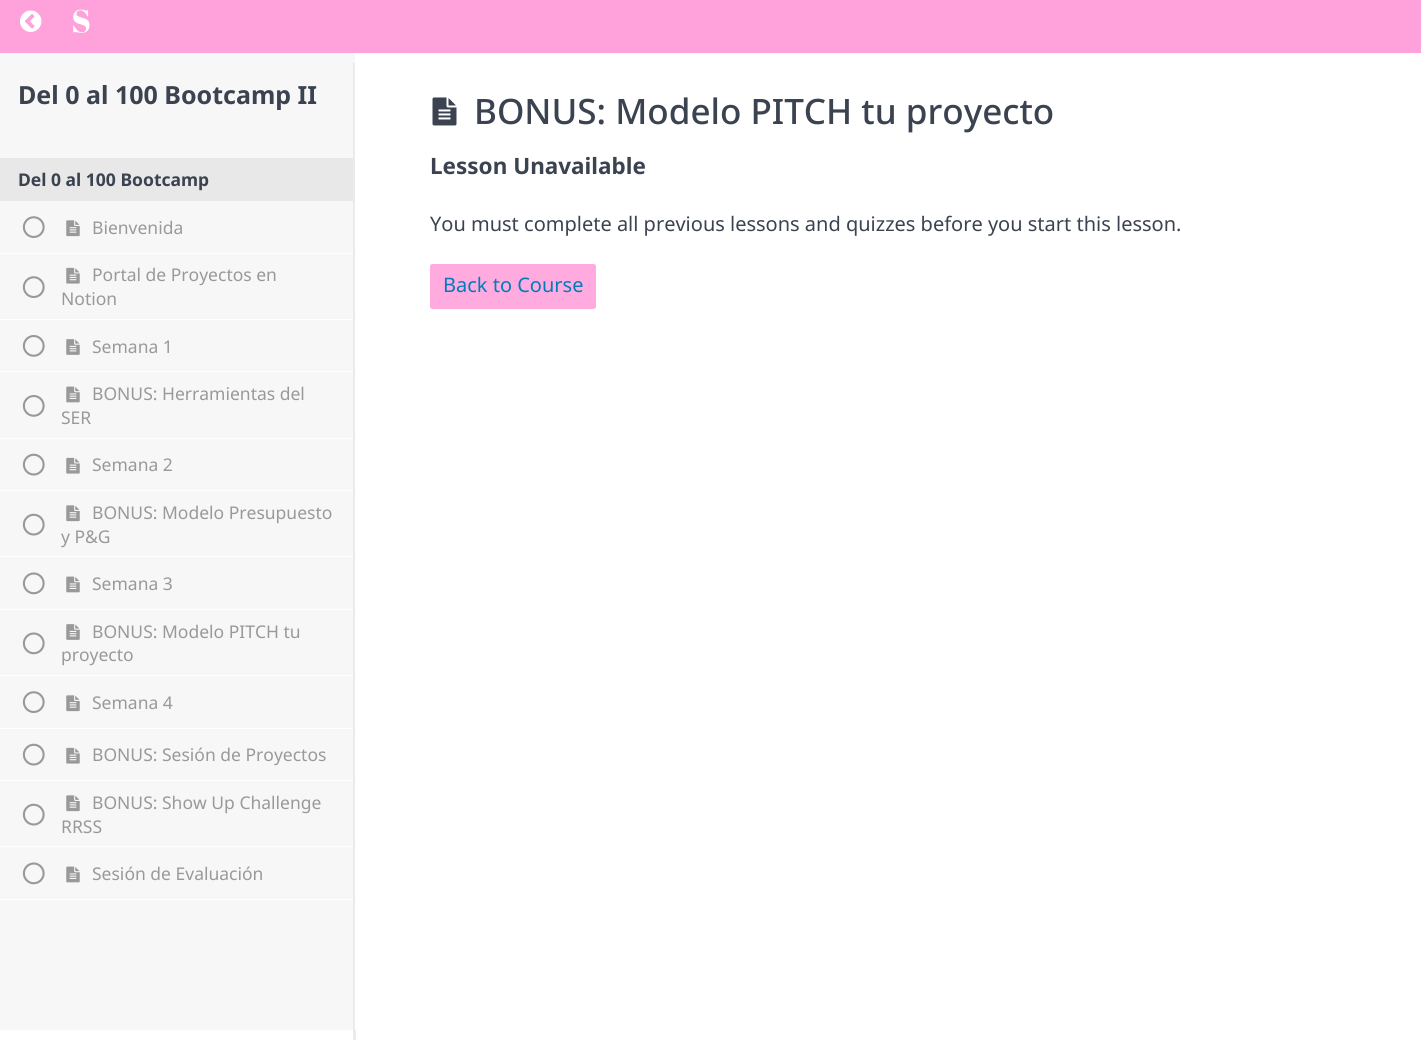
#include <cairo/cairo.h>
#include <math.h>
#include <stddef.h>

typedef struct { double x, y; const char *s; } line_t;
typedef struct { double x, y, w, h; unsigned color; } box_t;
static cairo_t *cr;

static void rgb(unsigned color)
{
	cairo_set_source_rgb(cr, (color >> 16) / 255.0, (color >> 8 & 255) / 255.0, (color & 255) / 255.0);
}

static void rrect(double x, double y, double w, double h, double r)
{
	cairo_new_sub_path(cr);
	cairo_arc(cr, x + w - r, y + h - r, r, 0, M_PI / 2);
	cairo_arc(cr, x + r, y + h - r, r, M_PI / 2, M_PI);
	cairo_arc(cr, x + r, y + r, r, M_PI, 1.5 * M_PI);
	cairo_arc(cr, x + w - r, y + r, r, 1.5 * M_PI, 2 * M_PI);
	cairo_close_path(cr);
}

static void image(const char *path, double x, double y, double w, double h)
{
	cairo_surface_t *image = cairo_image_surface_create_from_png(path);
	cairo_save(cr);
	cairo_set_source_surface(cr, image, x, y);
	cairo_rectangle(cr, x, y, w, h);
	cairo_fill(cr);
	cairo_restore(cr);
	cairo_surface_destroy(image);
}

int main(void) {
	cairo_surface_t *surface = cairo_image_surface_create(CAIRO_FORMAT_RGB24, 1421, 1040);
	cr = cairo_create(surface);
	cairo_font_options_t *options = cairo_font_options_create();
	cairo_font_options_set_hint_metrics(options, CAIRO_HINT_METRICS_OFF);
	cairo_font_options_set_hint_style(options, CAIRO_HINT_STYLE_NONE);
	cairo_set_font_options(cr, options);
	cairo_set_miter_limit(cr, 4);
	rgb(0xffffff);
	cairo_paint(cr);
	rgb(0xffa2dc);
	cairo_rectangle(cr, 0, 0, 1421, 53);
	cairo_fill(cr);
	image("img/1.png", 20, 10, 22, 22);
	image("img/2.png", 73, 9, 17, 24);
	{
		static const box_t items[] = {
			{0, 53, 355, 977, 0xf7f7f7},
			{353, 63, 3, 977, 0xe8ebef},
			{0, 158, 353, 43, 0xe8e8e8},
			{0, 253, 353, 1, 0xffffff},
		};
		for (size_t i = 0; i < sizeof items / sizeof *items; i++) {
			rgb(items[i].color);
			cairo_rectangle(cr, items[i].x, items[i].y, items[i].w, items[i].h);
			cairo_fill(cr);
		}
	}
	image("img/3.png", 22, 216, 23, 22);
	image("img/4.png", 66, 220, 14, 17);
	cairo_rectangle(cr, 0, 319, 353, 1);
	cairo_fill(cr);
	image("img/3.png", 22, 276, 23, 22);
	image("img/5.png", 66, 267, 14, 17);
	cairo_rectangle(cr, 0, 371, 353, 1);
	cairo_fill(cr);
	image("img/6.png", 22, 335, 23, 22);
	image("img/7.png", 66, 339, 14, 16);
	cairo_rectangle(cr, 0, 438, 353, 1);
	cairo_fill(cr);
	image("img/6.png", 22, 395, 23, 22);
	image("img/8.png", 66, 386, 14, 17);
	cairo_rectangle(cr, 0, 490, 353, 1);
	cairo_fill(cr);
	image("img/9.png", 22, 453, 23, 23);
	image("img/5.png", 66, 457, 14, 17);
	cairo_rectangle(cr, 0, 556, 353, 1);
	cairo_fill(cr);
	image("img/9.png", 22, 513, 23, 23);
	image("img/4.png", 66, 505, 14, 17);
	cairo_rectangle(cr, 0, 609, 353, 1);
	cairo_fill(cr);
	image("img/10.png", 22, 572, 23, 23);
	image("img/8.png", 66, 576, 14, 17);
	cairo_rectangle(cr, 0, 675, 353, 1);
	cairo_fill(cr);
	image("img/10.png", 22, 632, 23, 23);
	image("img/7.png", 66, 624, 14, 16);
	cairo_rectangle(cr, 0, 728, 353, 1);
	cairo_fill(cr);
	image("img/3.png", 22, 691, 23, 22);
	image("img/4.png", 66, 695, 14, 17);
	cairo_rectangle(cr, 0, 780, 353, 1);
	cairo_fill(cr);
	image("img/9.png", 22, 743, 23, 23);
	image("img/5.png", 66, 747, 14, 17);
	cairo_rectangle(cr, 0, 846, 353, 1);
	cairo_fill(cr);
	image("img/9.png", 22, 803, 23, 23);
	image("img/4.png", 66, 795, 14, 17);
	cairo_rectangle(cr, 0, 899, 353, 1);
	cairo_fill(cr);
	image("img/10.png", 22, 862, 23, 23);
	image("img/8.png", 66, 866, 14, 17);
	cairo_rectangle(cr, 355, 63, 1, 967);
	cairo_fill(cr);
	image("img/11.png", 432, 97, 25, 29);
	rgb(0xffabe0);
	rrect(430, 264, 166, 45, 2.5);
	cairo_fill(cr);
	cairo_select_font_face(cr, "Noto Sans", CAIRO_FONT_SLANT_NORMAL, CAIRO_FONT_WEIGHT_BOLD);
	cairo_set_font_size(cr, 25);
	rgb(0x3b4351);
	cairo_move_to(cr, 18, 104);
	cairo_show_text(cr, "Del 0 al 100 Bootcamp II");
	cairo_set_font_size(cr, 17.5);
	cairo_move_to(cr, 18, 186);
	cairo_show_text(cr, "Del 0 al 100 Bootcamp");
	cairo_select_font_face(cr, "Noto Sans", CAIRO_FONT_SLANT_NORMAL, CAIRO_FONT_WEIGHT_NORMAL);
	rgb(0x999999);
	{
		static const line_t items[] = {
			{92, 234, "Bienvenida"},
			{92, 281, "Portal de Proyectos en"},
			{61, 305, "Notion"},
			{92, 353, "Semana 1"},
			{92, 400, "BONUS: Herramientas del"},
			{61, 424, "SER"},
			{92, 471, "Semana 2"},
			{92, 519, "BONUS: Modelo Presupuesto"},
			{61, 543, "y P&G"},
			{92, 590, "Semana 3"},
			{92, 638, "BONUS: Modelo PITCH tu"},
			{61, 661, "proyecto"},
			{92, 709, "Semana 4"},
			{92, 761, "BONUS: Sesión de Proyectos"},
			{92, 809, "BONUS: Show Up Challenge"},
			{61, 833, "RRSS"},
			{92, 880, "Sesión de Evaluación"},
		};
		for (size_t i = 0; i < sizeof items / sizeof *items; i++) {
			cairo_move_to(cr, items[i].x, items[i].y);
			cairo_show_text(cr, items[i].s);
		}
	}
	cairo_select_font_face(cr, "Noto Sans Medium", CAIRO_FONT_SLANT_NORMAL, CAIRO_FONT_WEIGHT_NORMAL);
	cairo_set_font_size(cr, 35);
	rgb(0x3b4351);
	cairo_move_to(cr, 474, 124);
	cairo_show_text(cr, "BONUS: Modelo PITCH tu proyecto");
	cairo_select_font_face(cr, "Noto Sans", CAIRO_FONT_SLANT_NORMAL, CAIRO_FONT_WEIGHT_BOLD);
	cairo_set_font_size(cr, 22.5);
	cairo_move_to(cr, 430, 174);
	cairo_show_text(cr, "Lesson Unavailable");
	cairo_select_font_face(cr, "Noto Sans", CAIRO_FONT_SLANT_NORMAL, CAIRO_FONT_WEIGHT_NORMAL);
	cairo_set_font_size(cr, 20);
	cairo_move_to(cr, 430, 231);
	cairo_show_text(cr, "You must complete all previous lessons and quizzes before you start this lesson.");
	rgb(0x007cba);
	cairo_move_to(cr, 443, 292);
	cairo_show_text(cr, "Back to Course");
	cairo_surface_write_to_png(surface, "page.png");
	cairo_font_options_destroy(options);
	cairo_destroy(cr);
	cairo_surface_destroy(surface);
	return 0;
}
